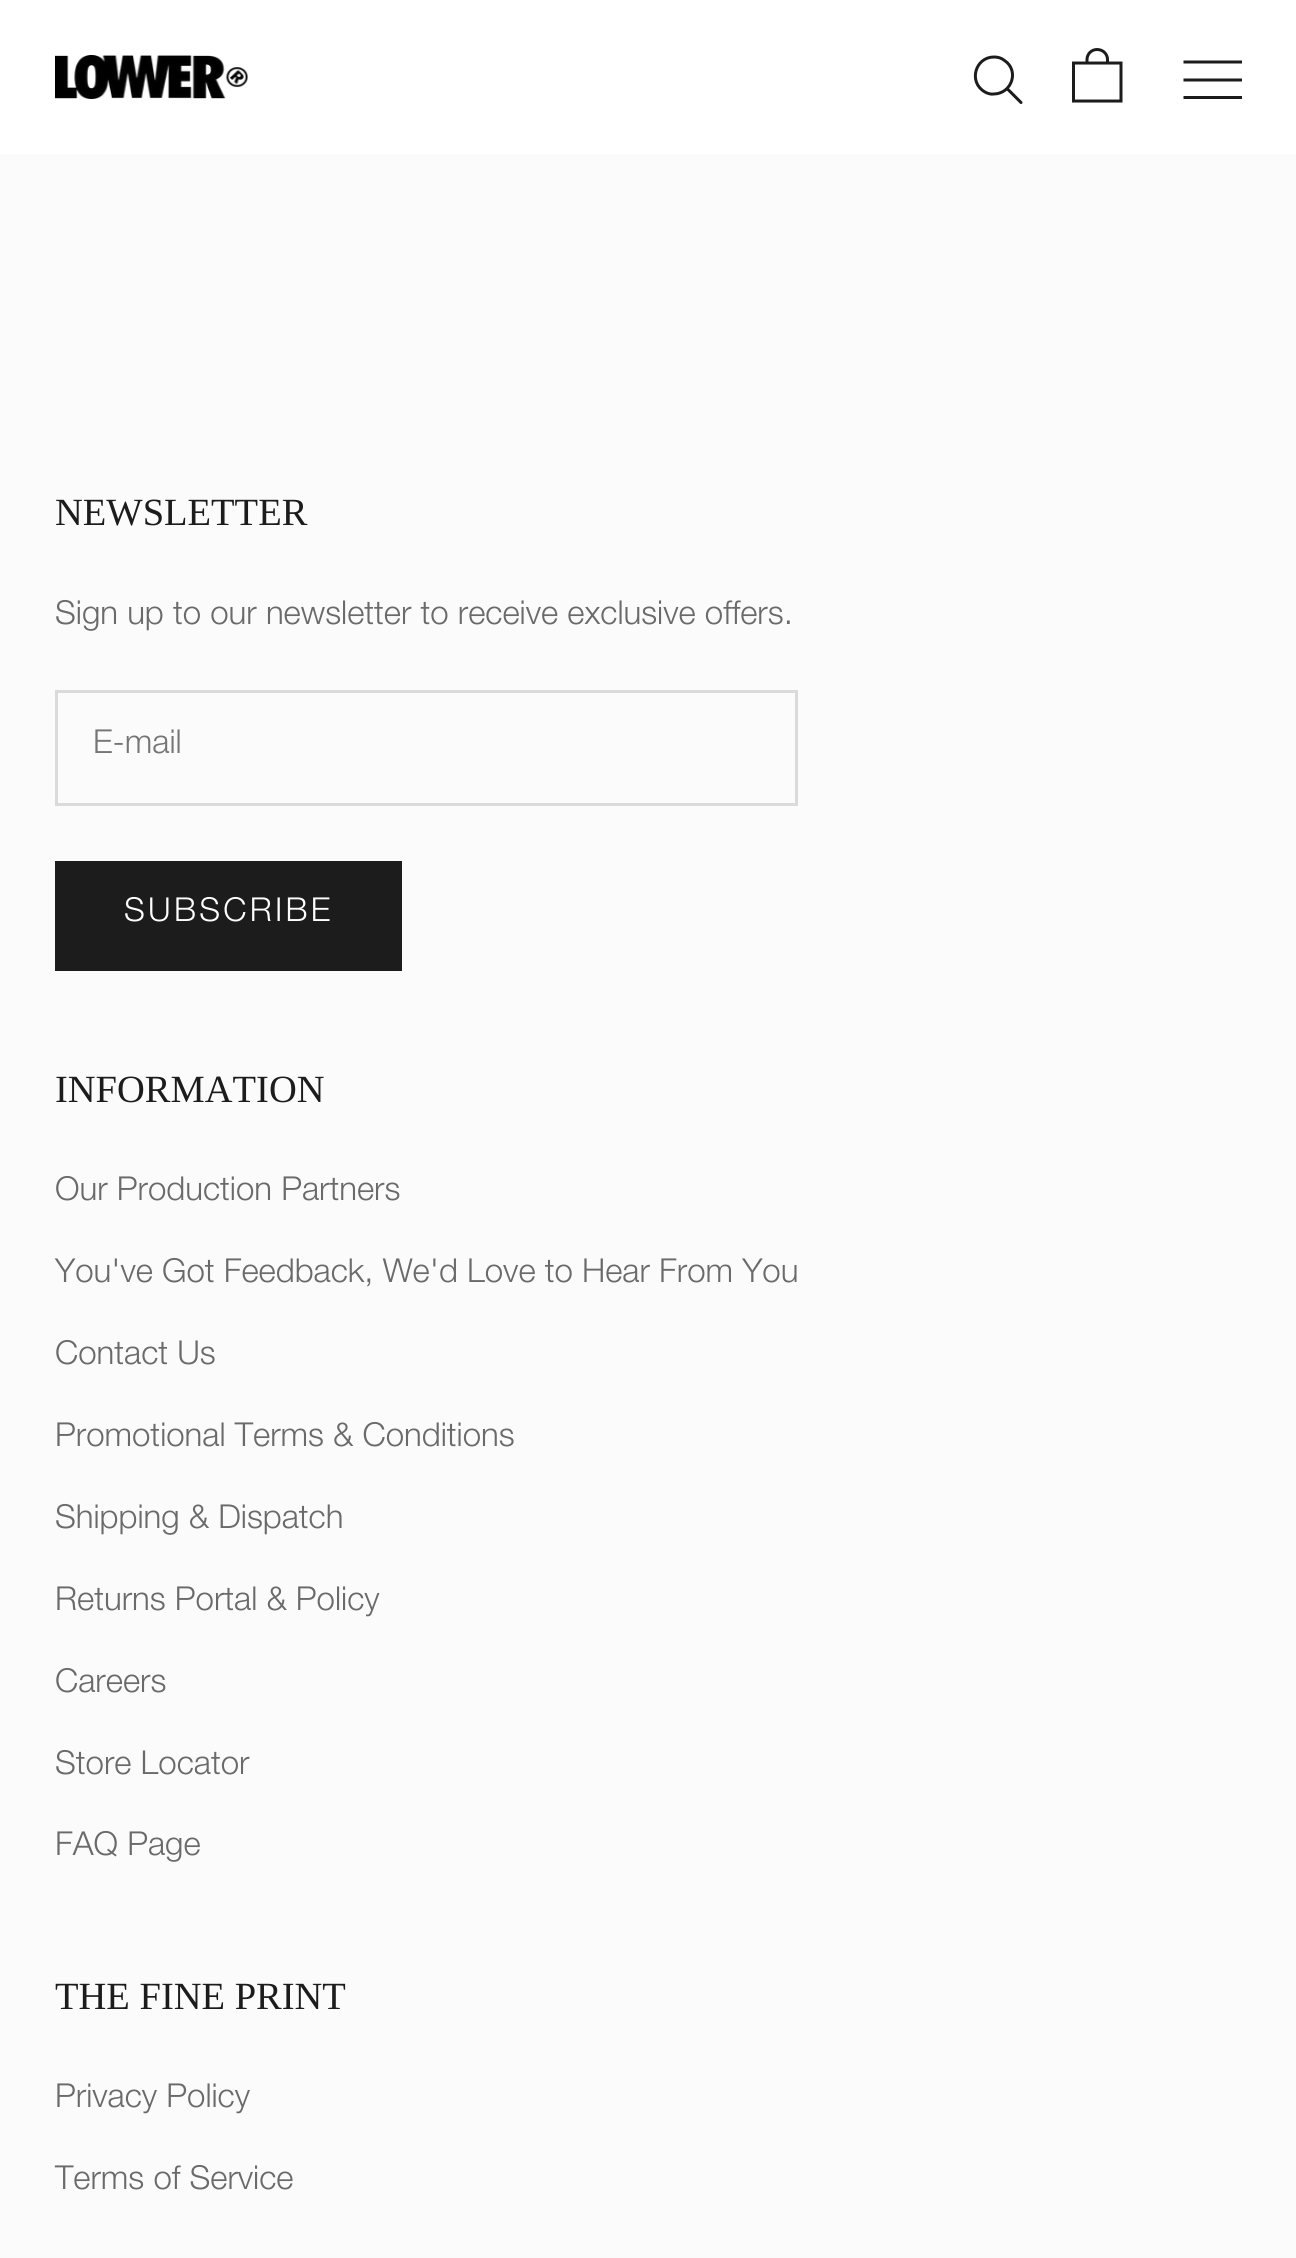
#include <cairo/cairo.h>
#include <math.h>
#include <stddef.h>

typedef struct { double x, y; const char *s; } line_t;
static cairo_t *cr;

static void rgb(unsigned color)
{
	cairo_set_source_rgb(cr, (color >> 16) / 255.0, (color >> 8 & 255) / 255.0, (color & 255) / 255.0);
}

static void tracked(double x, double y, const char *s, double letter, double word)
{
	cairo_move_to(cr, x, y);
	while (*s) {
		char ch[5] = {0};
		int n = 0;
		do ch[n++] = *s++; while ((*s & 0xC0) == 0x80);
		cairo_show_text(cr, ch);
		cairo_rel_move_to(cr, letter + word * (*ch == ' '), 0);
	}
}

static void image(const char *path, double x, double y, double w, double h)
{
	cairo_surface_t *image = cairo_image_surface_create_from_png(path);
	cairo_save(cr);
	cairo_set_source_surface(cr, image, x, y);
	cairo_rectangle(cr, x, y, w, h);
	cairo_fill(cr);
	cairo_restore(cr);
	cairo_surface_destroy(image);
}

int main(void) {
	cairo_surface_t *surface = cairo_image_surface_create(CAIRO_FORMAT_RGB24, 1296, 2258);
	cr = cairo_create(surface);
	cairo_font_options_t *options = cairo_font_options_create();
	cairo_font_options_set_hint_metrics(options, CAIRO_HINT_METRICS_OFF);
	cairo_font_options_set_hint_style(options, CAIRO_HINT_STYLE_NONE);
	cairo_set_font_options(cr, options);
	cairo_set_miter_limit(cr, 4);
	rgb(0xfbfbfb);
	cairo_paint(cr);
	rgb(0xffffff);
	cairo_rectangle(cr, 0, 0, 1296, 154);
	cairo_fill(cr);
	image("img/1.png", 55, 55, 193, 44);
	cairo_new_path(cr);
	cairo_move_to(cr, 994, 57);
	cairo_curve_to(cr, 975, 57, 968, 82.5, 985, 92);
	cairo_curve_to(cr, 987.5, 93.5, 991, 94.5, 994, 94);
	cairo_curve_to(cr, 1012, 93.5, 1019.5, 70.5, 1004.5, 60.5);
	cairo_curve_to(cr, 1001.5, 58, 998, 57, 994, 57);
	cairo_close_path(cr);
	rgb(0x1c1c1c);
	cairo_set_line_width(cr, 3);
	cairo_stroke(cr);
	cairo_new_path(cr);
	cairo_move_to(cr, 1008, 89.5);
	cairo_line_to(cr, 1021, 102.5);
	cairo_set_line_cap(cr, CAIRO_LINE_CAP_ROUND);
	cairo_stroke(cr);
	cairo_new_path(cr);
	cairo_move_to(cr, 1121, 101);
	cairo_line_to(cr, 1121, 63);
	cairo_line_to(cr, 1073.5, 63);
	cairo_line_to(cr, 1073.5, 101);
	cairo_close_path(cr);
	cairo_move_to(cr, 1087, 62);
	cairo_line_to(cr, 1087, 59.5);
	cairo_curve_to(cr, 1087, 54, 1091.5, 49.5, 1097, 49.5);
	cairo_curve_to(cr, 1103, 49.5, 1107.5, 54, 1107.5, 59.5);
	cairo_line_to(cr, 1107.5, 62);
	cairo_set_line_cap(cr, CAIRO_LINE_CAP_BUTT);
	cairo_stroke(cr);
	cairo_new_path(cr);
	cairo_move_to(cr, 1185, 97.5);
	cairo_line_to(cr, 1240.5, 97.5);
	cairo_move_to(cr, 1185, 80);
	cairo_line_to(cr, 1240.5, 80);
	cairo_move_to(cr, 1185, 62);
	cairo_line_to(cr, 1240.5, 62);
	cairo_set_line_cap(cr, CAIRO_LINE_CAP_SQUARE);
	cairo_stroke(cr);
	cairo_rectangle(cr, 56.5, 691.5, 740, 113);
	rgb(0xdadada);
	cairo_set_line_cap(cr, CAIRO_LINE_CAP_BUTT);
	cairo_stroke(cr);
	rgb(0x1c1c1c);
	cairo_rectangle(cr, 56.5, 862.5, 344, 107);
	cairo_fill_preserve(cr);
	cairo_stroke(cr);
	cairo_select_font_face(cr, "Liberation Serif", CAIRO_FONT_SLANT_NORMAL, CAIRO_FONT_WEIGHT_NORMAL);
	cairo_set_font_size(cr, 38.5);
	cairo_move_to(cr, 55, 525);
	cairo_show_text(cr, "NEWSLETTER");
	cairo_select_font_face(cr, "Helvetica Neue Light", CAIRO_FONT_SLANT_NORMAL, CAIRO_FONT_WEIGHT_NORMAL);
	cairo_set_font_size(cr, 33);
	rgb(0x6a6a6a);
	cairo_move_to(cr, 55, 624);
	cairo_show_text(cr, "Sign up to our newsletter to receive exclusive offers.");
	rgb(0x757575);
	cairo_move_to(cr, 93, 753);
	cairo_show_text(cr, "E-mail");
	rgb(0xffffff);
	tracked(124, 921, "SUBSCRIBE", 3.25, 0);
	cairo_select_font_face(cr, "Liberation Serif", CAIRO_FONT_SLANT_NORMAL, CAIRO_FONT_WEIGHT_NORMAL);
	cairo_set_font_size(cr, 38.5);
	rgb(0x1c1c1c);
	cairo_move_to(cr, 55, 1102);
	cairo_show_text(cr, "INFORMATION");
	cairo_select_font_face(cr, "Helvetica Neue Light", CAIRO_FONT_SLANT_NORMAL, CAIRO_FONT_WEIGHT_NORMAL);
	cairo_set_font_size(cr, 33);
	rgb(0x6a6a6a);
	{
		static const line_t items[] = {
			{55, 1200, "Our Production Partners"},
			{55, 1282, "You've Got Feedback, We'd Love to Hear From You"},
			{55, 1364, "Contact Us"},
			{55, 1446, "Promotional Terms & Conditions"},
			{55, 1528, "Shipping & Dispatch"},
			{55, 1610, "Returns Portal & Policy"},
			{55, 1692, "Careers"},
			{55, 1774, "Store Locator"},
			{55, 1855, "FAQ Page"},
		};
		for (size_t i = 0; i < sizeof items / sizeof *items; i++) {
			cairo_move_to(cr, items[i].x, items[i].y);
			cairo_show_text(cr, items[i].s);
		}
	}
	cairo_select_font_face(cr, "Liberation Serif", CAIRO_FONT_SLANT_NORMAL, CAIRO_FONT_WEIGHT_NORMAL);
	cairo_set_font_size(cr, 38.5);
	rgb(0x1c1c1c);
	cairo_move_to(cr, 55, 2009);
	cairo_show_text(cr, "THE FINE PRINT");
	cairo_select_font_face(cr, "Helvetica Neue Light", CAIRO_FONT_SLANT_NORMAL, CAIRO_FONT_WEIGHT_NORMAL);
	cairo_set_font_size(cr, 33);
	rgb(0x6a6a6a);
	cairo_move_to(cr, 55, 2107);
	cairo_show_text(cr, "Privacy Policy");
	cairo_move_to(cr, 55, 2189);
	cairo_show_text(cr, "Terms of Service");
	cairo_surface_write_to_png(surface, "page.png");
	cairo_font_options_destroy(options);
	cairo_destroy(cr);
	cairo_surface_destroy(surface);
	return 0;
}
